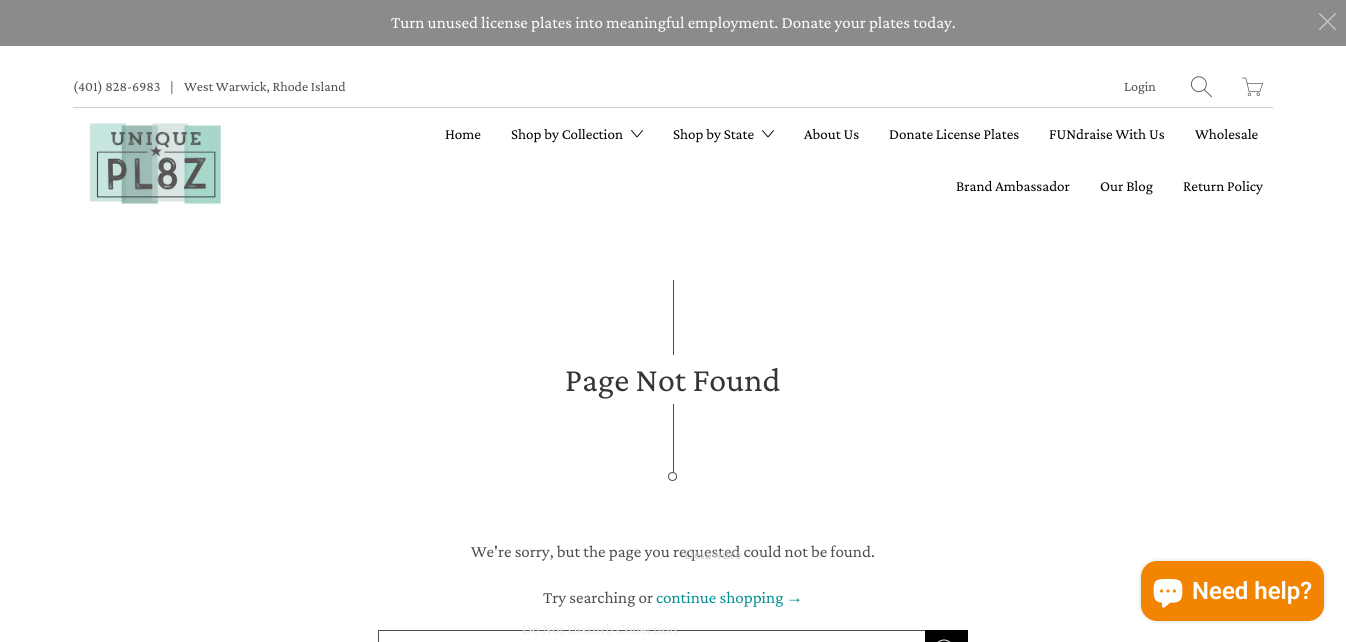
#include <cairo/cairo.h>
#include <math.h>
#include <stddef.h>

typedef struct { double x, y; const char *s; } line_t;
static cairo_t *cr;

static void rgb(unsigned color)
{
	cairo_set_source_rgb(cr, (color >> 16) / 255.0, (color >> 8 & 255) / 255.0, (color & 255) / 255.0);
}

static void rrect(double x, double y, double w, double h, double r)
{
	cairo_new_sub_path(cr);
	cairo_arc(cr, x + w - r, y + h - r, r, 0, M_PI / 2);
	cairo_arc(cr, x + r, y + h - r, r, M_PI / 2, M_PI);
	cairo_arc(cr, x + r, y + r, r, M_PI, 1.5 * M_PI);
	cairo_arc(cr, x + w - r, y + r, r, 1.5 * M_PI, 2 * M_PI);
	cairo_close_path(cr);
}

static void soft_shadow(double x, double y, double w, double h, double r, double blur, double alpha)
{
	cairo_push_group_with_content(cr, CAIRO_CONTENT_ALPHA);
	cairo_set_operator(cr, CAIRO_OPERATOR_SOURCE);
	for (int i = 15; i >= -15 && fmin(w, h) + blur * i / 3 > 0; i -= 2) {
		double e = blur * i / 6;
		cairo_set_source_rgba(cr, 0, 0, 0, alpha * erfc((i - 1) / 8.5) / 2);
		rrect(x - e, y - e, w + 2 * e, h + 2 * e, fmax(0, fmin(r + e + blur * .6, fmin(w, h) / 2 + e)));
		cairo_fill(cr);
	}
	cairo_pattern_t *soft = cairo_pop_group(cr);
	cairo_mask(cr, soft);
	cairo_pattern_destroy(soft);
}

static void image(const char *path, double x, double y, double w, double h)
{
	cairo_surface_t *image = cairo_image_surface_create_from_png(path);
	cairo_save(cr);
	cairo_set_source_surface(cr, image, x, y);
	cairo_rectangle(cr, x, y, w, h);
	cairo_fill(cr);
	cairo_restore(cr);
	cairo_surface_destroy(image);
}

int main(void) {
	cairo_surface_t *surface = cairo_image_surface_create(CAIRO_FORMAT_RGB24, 1346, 642);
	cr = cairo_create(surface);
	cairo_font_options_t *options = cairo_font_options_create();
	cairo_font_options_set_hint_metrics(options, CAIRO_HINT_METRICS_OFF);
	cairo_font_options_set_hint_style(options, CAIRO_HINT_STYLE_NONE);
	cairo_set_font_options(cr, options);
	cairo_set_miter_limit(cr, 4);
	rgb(0xffffff);
	cairo_paint(cr);
	rgb(0x8c8b8b);
	cairo_rectangle(cr, 0, 0, 1346, 46);
	cairo_fill(cr);
	image("img/1.png", 1319, 13, 17, 17);
	rgb(0xcccccc);
	cairo_rectangle(cr, 73, 107, 1200, 1);
	cairo_fill(cr);
	image("img/2.png", 1191, 76, 21, 22);
	image("img/3.png", 1242, 77, 21, 19);
	image("img/4.png", 89, 123, 132, 82);
	image("img/5.png", 631, 130, 12, 8);
	image("img/5.png", 762, 130, 12, 8);
	rgb(0x4e4e4e);
	cairo_rectangle(cr, 673, 280, 1, 75);
	cairo_fill(cr);
	cairo_rectangle(cr, 673, 404, 1, 68);
	cairo_fill(cr);
	cairo_arc(cr, 672.5, 476.5, 4, 0, 2 * M_PI);
	cairo_set_line_width(cr, 1);
	cairo_stroke(cr);
	cairo_rectangle(cr, 378.5, 630.5, 589, 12);
	cairo_stroke(cr);
	rgb(0x000000);
	cairo_rectangle(cr, 925, 630, 43, 12);
	cairo_fill(cr);
	image("img/6.png", 938, 639, 12, 3);
	rgb(0x000000);
	soft_shadow(1141, 561, 183, 60, 16, 2.5, 0.15);
	rgb(0xf28400);
	rrect(1141, 561, 183, 60, 16);
	cairo_fill(cr);
	image("img/7.png", 1153, 579, 30, 29);
	cairo_select_font_face(cr, "Crimson Pro", CAIRO_FONT_SLANT_NORMAL, CAIRO_FONT_WEIGHT_NORMAL);
	cairo_set_font_size(cr, 17);
	rgb(0xffffff);
	cairo_move_to(cr, 391, 28);
	cairo_show_text(cr, "Turn unused license plates into meaningful employment. Donate your plates today.");
	cairo_set_font_size(cr, 14);
	rgb(0x4e4e4e);
	{
		static const line_t items[] = {
			{73, 91, "(401) 828-6983"},
			{170, 91, "|"},
			{184, 91, "West Warwick, Rhode Island"},
			{1124, 91, "Login"},
		};
		for (size_t i = 0; i < sizeof items / sizeof *items; i++) {
			cairo_move_to(cr, items[i].x, items[i].y);
			cairo_show_text(cr, items[i].s);
		}
	}
	cairo_set_font_size(cr, 15);
	rgb(0x000000);
	cairo_move_to(cr, 445, 139);
	cairo_show_text(cr, "Home");
	cairo_move_to(cr, 511, 139);
	cairo_show_text(cr, "Shop by Collection");
	rgb(0xededed);
	cairo_move_to(cr, 522, 634);
	cairo_show_text(cr, "Do Not Disturb Collection");
	rgb(0x000000);
	{
		static const line_t items[] = {
			{673, 139, "Shop by State"},
			{804, 139, "About Us"},
			{889, 139, "Donate License Plates"},
			{1049, 139, "FUNdraise With Us"},
			{1195, 139, "Wholesale"},
			{956, 191, "Brand Ambassador"},
			{1100, 191, "Our Blog"},
			{1183, 191, "Return Policy"},
		};
		for (size_t i = 0; i < sizeof items / sizeof *items; i++) {
			cairo_move_to(cr, items[i].x, items[i].y);
			cairo_show_text(cr, items[i].s);
		}
	}
	cairo_set_font_size(cr, 34);
	rgb(0x353535);
	cairo_move_to(cr, 565, 391);
	cairo_show_text(cr, "Page Not Found");
	cairo_set_font_size(cr, 17);
	rgb(0x4e4e4e);
	cairo_move_to(cr, 471, 557);
	cairo_show_text(cr, "We're sorry, but the page you requested could not be found.");
	cairo_set_font_size(cr, 15);
	rgb(0xd4d4d4);
	cairo_move_to(cr, 684, 559);
	cairo_show_text(cr, "Delaware");
	cairo_set_font_size(cr, 17);
	rgb(0x4e4e4e);
	cairo_move_to(cr, 543, 603);
	cairo_show_text(cr, "Try searching or");
	rgb(0x048f92);
	cairo_move_to(cr, 656, 603);
	cairo_show_text(cr, "continue shopping");
	cairo_select_font_face(cr, "Liberation Serif", CAIRO_FONT_SLANT_NORMAL, CAIRO_FONT_WEIGHT_NORMAL);
	cairo_move_to(cr, 786, 603);
	cairo_show_text(cr, "→");
	cairo_select_font_face(cr, "Roboto SemiBold", CAIRO_FONT_SLANT_NORMAL, CAIRO_FONT_WEIGHT_NORMAL);
	cairo_set_font_size(cr, 24);
	rgb(0xffffff);
	cairo_move_to(cr, 1192, 599);
	cairo_show_text(cr, "Need help?");
	cairo_surface_write_to_png(surface, "page.png");
	cairo_font_options_destroy(options);
	cairo_destroy(cr);
	cairo_surface_destroy(surface);
	return 0;
}
